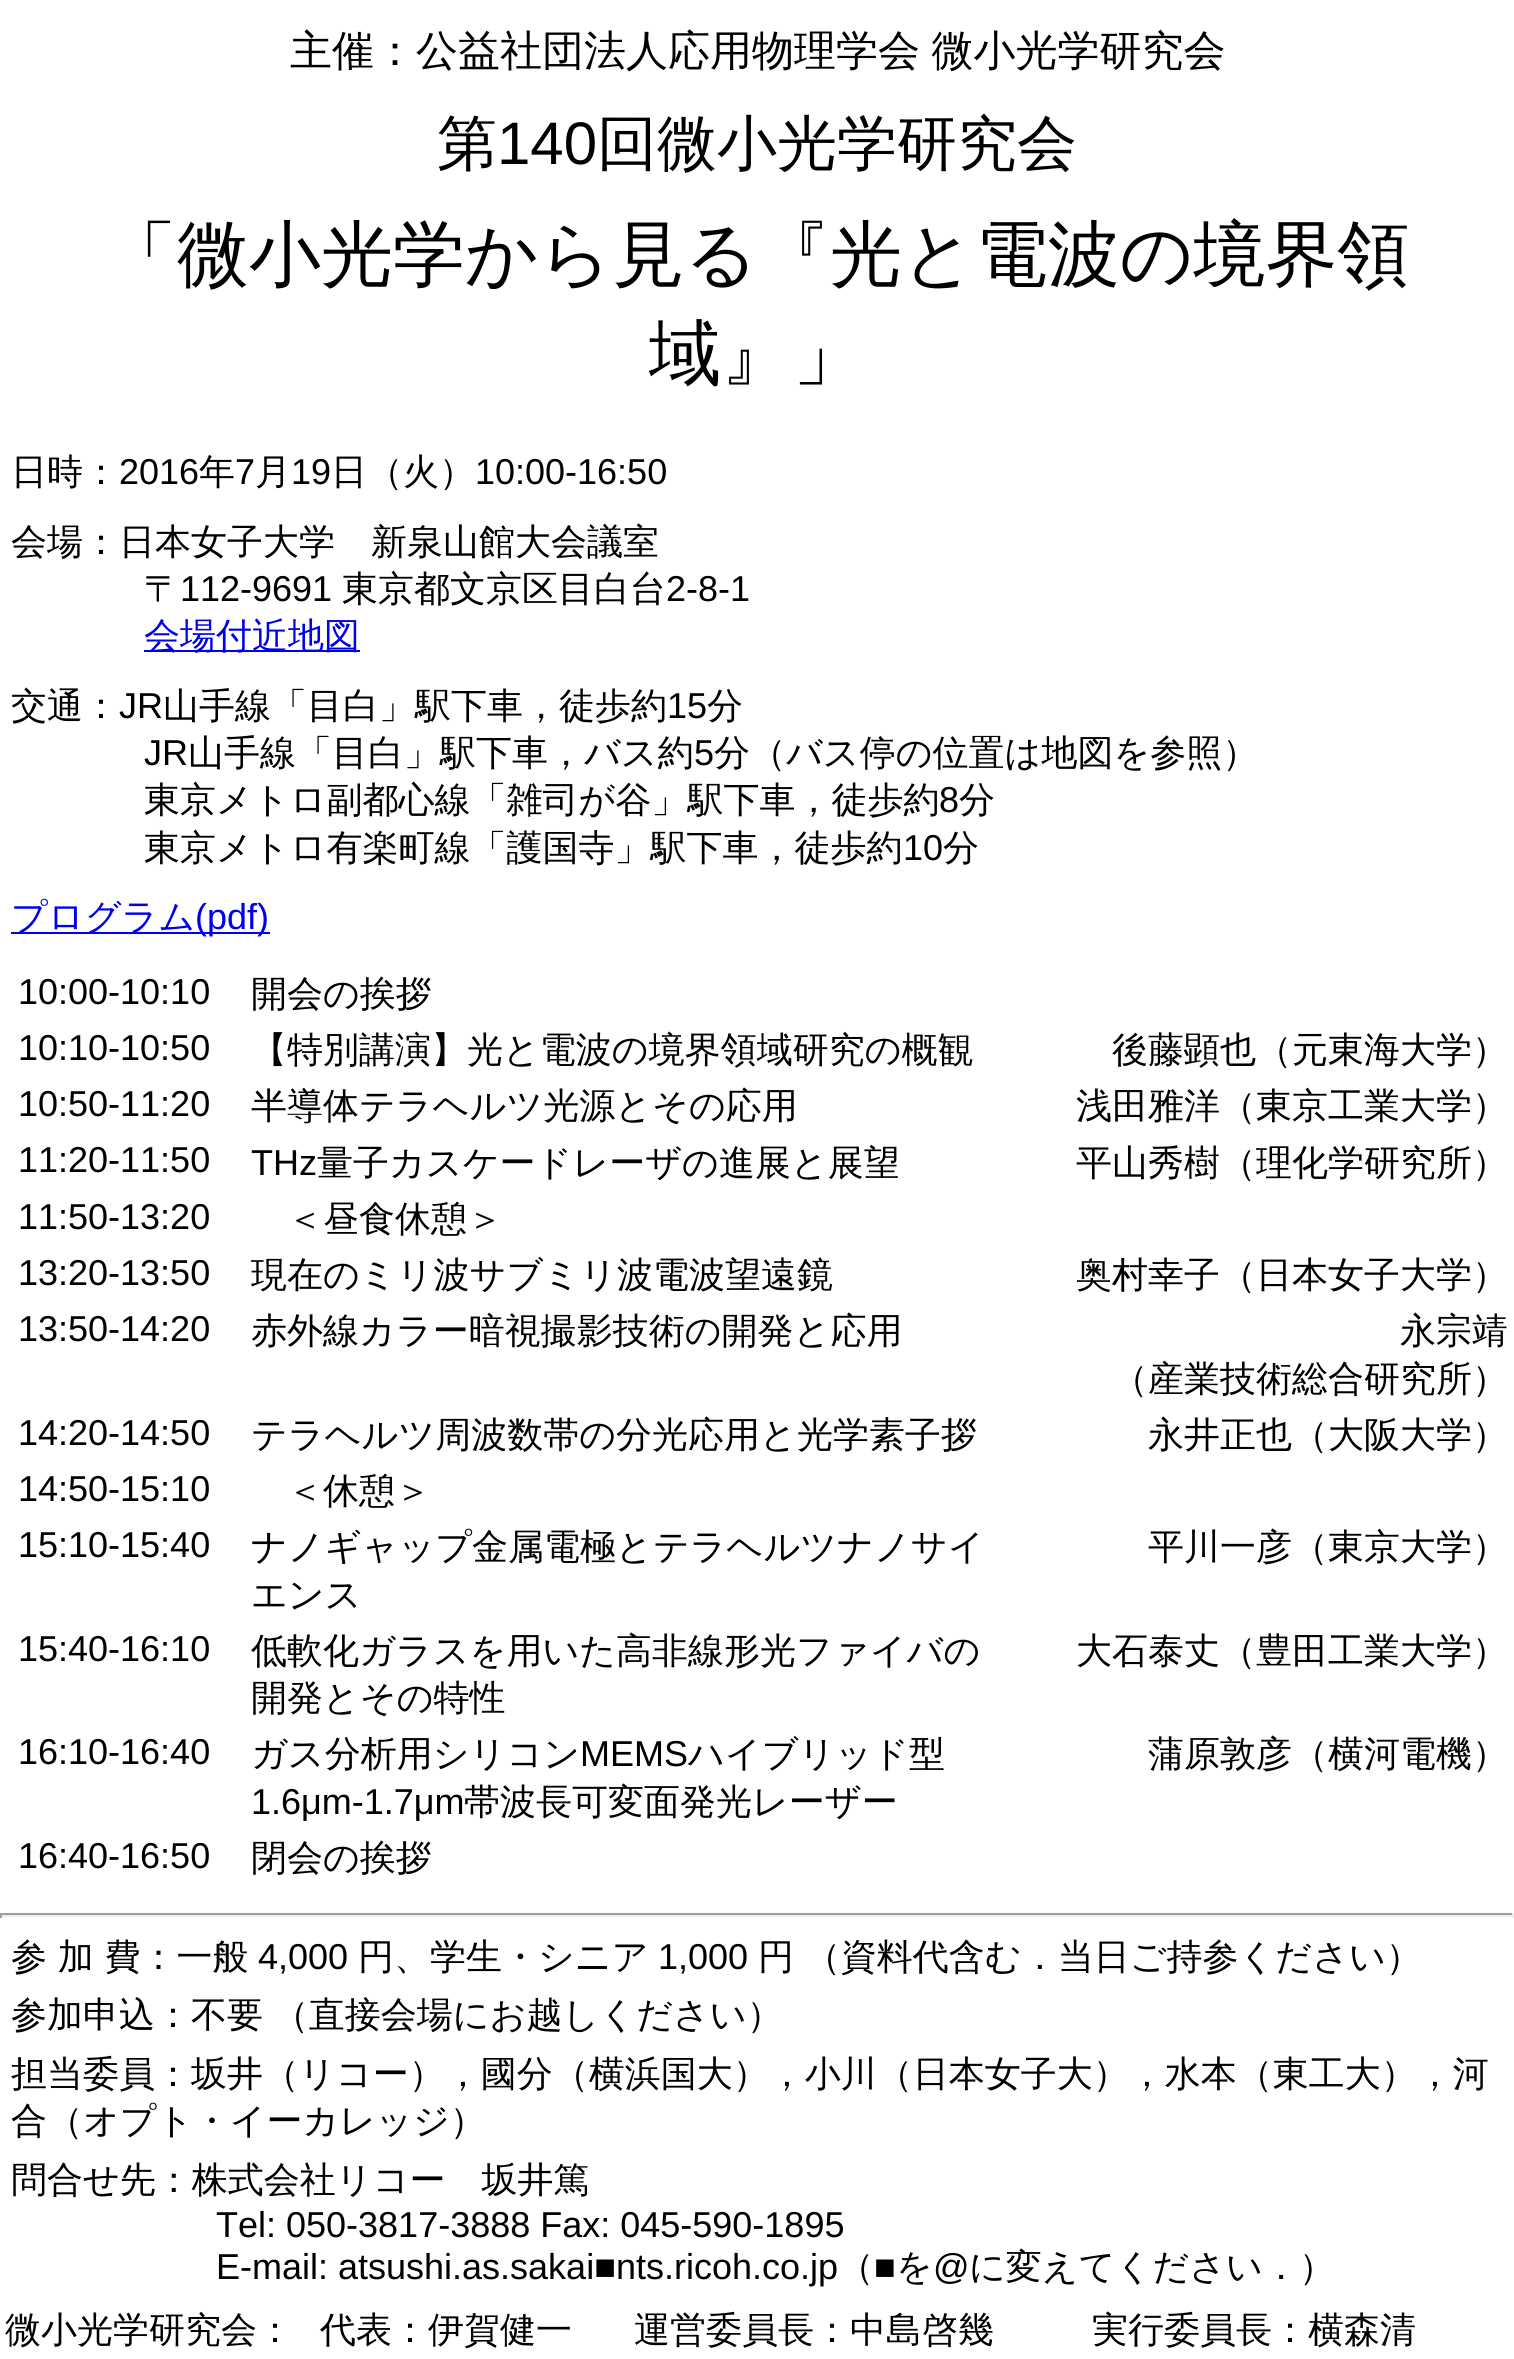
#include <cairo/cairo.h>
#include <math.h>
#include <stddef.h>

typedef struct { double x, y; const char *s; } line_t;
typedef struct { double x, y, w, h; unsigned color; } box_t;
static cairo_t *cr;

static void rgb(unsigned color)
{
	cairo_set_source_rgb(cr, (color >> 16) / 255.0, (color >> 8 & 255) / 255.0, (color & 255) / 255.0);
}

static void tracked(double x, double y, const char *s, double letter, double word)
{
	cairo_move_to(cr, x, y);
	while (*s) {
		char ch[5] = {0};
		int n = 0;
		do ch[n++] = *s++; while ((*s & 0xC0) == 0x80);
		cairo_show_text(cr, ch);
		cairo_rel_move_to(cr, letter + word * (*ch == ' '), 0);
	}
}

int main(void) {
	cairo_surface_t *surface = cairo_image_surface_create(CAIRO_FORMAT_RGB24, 1514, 2359);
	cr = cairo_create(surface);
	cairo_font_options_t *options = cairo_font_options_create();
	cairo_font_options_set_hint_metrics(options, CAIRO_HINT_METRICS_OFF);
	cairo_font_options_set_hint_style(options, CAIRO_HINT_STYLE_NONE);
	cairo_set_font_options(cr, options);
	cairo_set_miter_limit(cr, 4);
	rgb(0xffffff);
	cairo_paint(cr);
	{
		static const box_t items[] = {
			{144, 650, 216, 2, 0x0000ee},
			{11, 932, 259, 2, 0x0000ee},
			{0, 1913, 1514, 2, 0x9f9f9f},
			{1512, 1913, 2, 5, 0xeeeeee},
			{0, 1915, 1514, 2, 0xeeeeee},
			{0, 1913, 2, 5, 0x9f9f9f},
		};
		for (size_t i = 0; i < sizeof items / sizeof *items; i++) {
			rgb(items[i].color);
			cairo_rectangle(cr, items[i].x, items[i].y, items[i].w, items[i].h);
			cairo_fill(cr);
		}
	}
	cairo_select_font_face(cr, "WenQuanYi Zen Hei Medium", CAIRO_FONT_SLANT_NORMAL, CAIRO_FONT_WEIGHT_NORMAL);
	cairo_set_font_size(cr, 42);
	rgb(0x000000);
	tracked(290, 65, "主催：公益社団法人応用物理学会 微小光学研究会", 0, -1);
	cairo_set_font_size(cr, 60);
	cairo_move_to(cr, 437, 164);
	cairo_show_text(cr, "第");
	cairo_select_font_face(cr, "Liberation Sans", CAIRO_FONT_SLANT_NORMAL, CAIRO_FONT_WEIGHT_NORMAL);
	cairo_move_to(cr, 497, 164);
	cairo_show_text(cr, "140");
	cairo_select_font_face(cr, "WenQuanYi Zen Hei Medium", CAIRO_FONT_SLANT_NORMAL, CAIRO_FONT_WEIGHT_NORMAL);
	cairo_move_to(cr, 597, 164);
	cairo_show_text(cr, "回微小光学研究会");
	cairo_set_font_size(cr, 72);
	cairo_move_to(cr, 105, 279);
	cairo_show_text(cr, "「微小光学から見る『光と電波の境界領");
	cairo_move_to(cr, 649, 378);
	cairo_show_text(cr, "域』」");
	cairo_set_font_size(cr, 36);
	cairo_move_to(cr, 11, 484);
	cairo_show_text(cr, "日時：");
	cairo_select_font_face(cr, "Liberation Sans", CAIRO_FONT_SLANT_NORMAL, CAIRO_FONT_WEIGHT_NORMAL);
	cairo_move_to(cr, 119, 484);
	cairo_show_text(cr, "2016");
	cairo_select_font_face(cr, "WenQuanYi Zen Hei Medium", CAIRO_FONT_SLANT_NORMAL, CAIRO_FONT_WEIGHT_NORMAL);
	cairo_move_to(cr, 199, 484);
	cairo_show_text(cr, "年");
	cairo_select_font_face(cr, "Liberation Sans", CAIRO_FONT_SLANT_NORMAL, CAIRO_FONT_WEIGHT_NORMAL);
	cairo_move_to(cr, 235, 484);
	cairo_show_text(cr, "7");
	cairo_select_font_face(cr, "WenQuanYi Zen Hei Medium", CAIRO_FONT_SLANT_NORMAL, CAIRO_FONT_WEIGHT_NORMAL);
	cairo_move_to(cr, 255, 484);
	cairo_show_text(cr, "月");
	cairo_select_font_face(cr, "Liberation Sans", CAIRO_FONT_SLANT_NORMAL, CAIRO_FONT_WEIGHT_NORMAL);
	cairo_move_to(cr, 291, 484);
	cairo_show_text(cr, "19");
	cairo_select_font_face(cr, "WenQuanYi Zen Hei Medium", CAIRO_FONT_SLANT_NORMAL, CAIRO_FONT_WEIGHT_NORMAL);
	cairo_move_to(cr, 331, 484);
	cairo_show_text(cr, "日（火）");
	cairo_select_font_face(cr, "Liberation Sans", CAIRO_FONT_SLANT_NORMAL, CAIRO_FONT_WEIGHT_NORMAL);
	cairo_move_to(cr, 475, 484);
	cairo_show_text(cr, "10:00-16:50");
	cairo_select_font_face(cr, "WenQuanYi Zen Hei Medium", CAIRO_FONT_SLANT_NORMAL, CAIRO_FONT_WEIGHT_NORMAL);
	cairo_move_to(cr, 11, 554);
	cairo_show_text(cr, "会場：日本女子大学　新泉山館大会議室");
	cairo_move_to(cr, 144, 601);
	cairo_show_text(cr, "〒");
	cairo_select_font_face(cr, "Liberation Sans", CAIRO_FONT_SLANT_NORMAL, CAIRO_FONT_WEIGHT_NORMAL);
	cairo_move_to(cr, 180, 601);
	cairo_show_text(cr, "112-9691");
	cairo_select_font_face(cr, "WenQuanYi Zen Hei Medium", CAIRO_FONT_SLANT_NORMAL, CAIRO_FONT_WEIGHT_NORMAL);
	cairo_move_to(cr, 342, 601);
	cairo_show_text(cr, "東京都文京区目白台");
	cairo_select_font_face(cr, "Liberation Sans", CAIRO_FONT_SLANT_NORMAL, CAIRO_FONT_WEIGHT_NORMAL);
	cairo_move_to(cr, 666, 601);
	cairo_show_text(cr, "2-8-1");
	cairo_select_font_face(cr, "WenQuanYi Zen Hei Medium", CAIRO_FONT_SLANT_NORMAL, CAIRO_FONT_WEIGHT_NORMAL);
	rgb(0x0000ee);
	cairo_move_to(cr, 144, 648);
	cairo_show_text(cr, "会場付近地図");
	rgb(0x000000);
	cairo_move_to(cr, 11, 718);
	cairo_show_text(cr, "交通：");
	cairo_select_font_face(cr, "Liberation Sans", CAIRO_FONT_SLANT_NORMAL, CAIRO_FONT_WEIGHT_NORMAL);
	cairo_move_to(cr, 119, 718);
	cairo_show_text(cr, "JR");
	cairo_select_font_face(cr, "WenQuanYi Zen Hei Medium", CAIRO_FONT_SLANT_NORMAL, CAIRO_FONT_WEIGHT_NORMAL);
	cairo_move_to(cr, 163, 718);
	cairo_show_text(cr, "山手線「目白」駅下車，徒歩約");
	cairo_select_font_face(cr, "Liberation Sans", CAIRO_FONT_SLANT_NORMAL, CAIRO_FONT_WEIGHT_NORMAL);
	cairo_move_to(cr, 667, 718);
	cairo_show_text(cr, "15");
	cairo_select_font_face(cr, "WenQuanYi Zen Hei Medium", CAIRO_FONT_SLANT_NORMAL, CAIRO_FONT_WEIGHT_NORMAL);
	cairo_move_to(cr, 707, 718);
	cairo_show_text(cr, "分");
	cairo_select_font_face(cr, "Liberation Sans", CAIRO_FONT_SLANT_NORMAL, CAIRO_FONT_WEIGHT_NORMAL);
	cairo_move_to(cr, 144, 765);
	cairo_show_text(cr, "JR");
	cairo_select_font_face(cr, "WenQuanYi Zen Hei Medium", CAIRO_FONT_SLANT_NORMAL, CAIRO_FONT_WEIGHT_NORMAL);
	cairo_move_to(cr, 188, 765);
	cairo_show_text(cr, "山手線「目白」駅下車，バス約");
	cairo_select_font_face(cr, "Liberation Sans", CAIRO_FONT_SLANT_NORMAL, CAIRO_FONT_WEIGHT_NORMAL);
	cairo_move_to(cr, 694, 765);
	cairo_show_text(cr, "5");
	cairo_select_font_face(cr, "WenQuanYi Zen Hei Medium", CAIRO_FONT_SLANT_NORMAL, CAIRO_FONT_WEIGHT_NORMAL);
	cairo_move_to(cr, 714, 765);
	cairo_show_text(cr, "分（バス停の位置は地図を参照）");
	cairo_move_to(cr, 144, 812);
	cairo_show_text(cr, "東京メトロ副都心線「雑司が谷」駅下車，徒歩約");
	cairo_select_font_face(cr, "Liberation Sans", CAIRO_FONT_SLANT_NORMAL, CAIRO_FONT_WEIGHT_NORMAL);
	cairo_move_to(cr, 939, 812);
	cairo_show_text(cr, "8");
	cairo_select_font_face(cr, "WenQuanYi Zen Hei Medium", CAIRO_FONT_SLANT_NORMAL, CAIRO_FONT_WEIGHT_NORMAL);
	cairo_move_to(cr, 959, 812);
	cairo_show_text(cr, "分");
	cairo_move_to(cr, 144, 860);
	cairo_show_text(cr, "東京メトロ有楽町線「護国寺」駅下車，徒歩約");
	cairo_select_font_face(cr, "Liberation Sans", CAIRO_FONT_SLANT_NORMAL, CAIRO_FONT_WEIGHT_NORMAL);
	cairo_move_to(cr, 903, 860);
	cairo_show_text(cr, "10");
	cairo_select_font_face(cr, "WenQuanYi Zen Hei Medium", CAIRO_FONT_SLANT_NORMAL, CAIRO_FONT_WEIGHT_NORMAL);
	cairo_move_to(cr, 943, 860);
	cairo_show_text(cr, "分");
	rgb(0x0000ee);
	cairo_move_to(cr, 11, 929);
	cairo_show_text(cr, "プログラム");
	cairo_select_font_face(cr, "Liberation Sans", CAIRO_FONT_SLANT_NORMAL, CAIRO_FONT_WEIGHT_NORMAL);
	cairo_move_to(cr, 195, 929);
	cairo_show_text(cr, "(pdf)");
	rgb(0x000000);
	cairo_move_to(cr, 18, 1004);
	cairo_show_text(cr, "10:00-10:10");
	cairo_select_font_face(cr, "WenQuanYi Zen Hei Medium", CAIRO_FONT_SLANT_NORMAL, CAIRO_FONT_WEIGHT_NORMAL);
	cairo_move_to(cr, 251, 1006);
	cairo_show_text(cr, "開会の挨拶");
	cairo_select_font_face(cr, "Liberation Sans", CAIRO_FONT_SLANT_NORMAL, CAIRO_FONT_WEIGHT_NORMAL);
	cairo_move_to(cr, 18, 1060);
	cairo_show_text(cr, "10:10-10:50");
	cairo_select_font_face(cr, "WenQuanYi Zen Hei Medium", CAIRO_FONT_SLANT_NORMAL, CAIRO_FONT_WEIGHT_NORMAL);
	cairo_move_to(cr, 251, 1062);
	cairo_show_text(cr, "【特別講演】光と電波の境界領域研究の概観");
	cairo_move_to(cr, 1112, 1062);
	cairo_show_text(cr, "後藤顕也（元東海大学）");
	cairo_select_font_face(cr, "Liberation Sans", CAIRO_FONT_SLANT_NORMAL, CAIRO_FONT_WEIGHT_NORMAL);
	cairo_move_to(cr, 18, 1116);
	cairo_show_text(cr, "10:50-11:20");
	cairo_select_font_face(cr, "WenQuanYi Zen Hei Medium", CAIRO_FONT_SLANT_NORMAL, CAIRO_FONT_WEIGHT_NORMAL);
	cairo_move_to(cr, 251, 1118);
	cairo_show_text(cr, "半導体テラヘルツ光源とその応用");
	cairo_move_to(cr, 1076, 1118);
	cairo_show_text(cr, "浅田雅洋（東京工業大学）");
	cairo_select_font_face(cr, "Liberation Sans", CAIRO_FONT_SLANT_NORMAL, CAIRO_FONT_WEIGHT_NORMAL);
	cairo_move_to(cr, 18, 1172);
	cairo_show_text(cr, "11:20-11:50");
	cairo_move_to(cr, 251, 1175);
	cairo_show_text(cr, "THz");
	cairo_select_font_face(cr, "WenQuanYi Zen Hei Medium", CAIRO_FONT_SLANT_NORMAL, CAIRO_FONT_WEIGHT_NORMAL);
	cairo_move_to(cr, 317, 1175);
	cairo_show_text(cr, "量子カスケードレーザの進展と展望");
	cairo_move_to(cr, 1076, 1175);
	cairo_show_text(cr, "平山秀樹（理化学研究所）");
	cairo_select_font_face(cr, "Liberation Sans", CAIRO_FONT_SLANT_NORMAL, CAIRO_FONT_WEIGHT_NORMAL);
	cairo_move_to(cr, 18, 1229);
	cairo_show_text(cr, "11:50-13:20");
	cairo_select_font_face(cr, "WenQuanYi Zen Hei Medium", CAIRO_FONT_SLANT_NORMAL, CAIRO_FONT_WEIGHT_NORMAL);
	cairo_move_to(cr, 287, 1231);
	cairo_show_text(cr, "＜昼食休憩＞");
	cairo_select_font_face(cr, "Liberation Sans", CAIRO_FONT_SLANT_NORMAL, CAIRO_FONT_WEIGHT_NORMAL);
	cairo_move_to(cr, 18, 1285);
	cairo_show_text(cr, "13:20-13:50");
	cairo_select_font_face(cr, "WenQuanYi Zen Hei Medium", CAIRO_FONT_SLANT_NORMAL, CAIRO_FONT_WEIGHT_NORMAL);
	cairo_move_to(cr, 251, 1287);
	cairo_show_text(cr, "現在のミリ波サブミリ波電波望遠鏡");
	cairo_move_to(cr, 1076, 1287);
	cairo_show_text(cr, "奥村幸子（日本女子大学）");
	cairo_select_font_face(cr, "Liberation Sans", CAIRO_FONT_SLANT_NORMAL, CAIRO_FONT_WEIGHT_NORMAL);
	cairo_move_to(cr, 18, 1341);
	cairo_show_text(cr, "13:50-14:20");
	cairo_select_font_face(cr, "WenQuanYi Zen Hei Medium", CAIRO_FONT_SLANT_NORMAL, CAIRO_FONT_WEIGHT_NORMAL);
	{
		static const line_t items[] = {
			{251, 1343, "赤外線カラー暗視撮影技術の開発と応用"},
			{1400, 1343, "永宗靖"},
			{1112, 1391, "（産業技術総合研究所）"},
		};
		for (size_t i = 0; i < sizeof items / sizeof *items; i++) {
			cairo_move_to(cr, items[i].x, items[i].y);
			cairo_show_text(cr, items[i].s);
		}
	}
	cairo_select_font_face(cr, "Liberation Sans", CAIRO_FONT_SLANT_NORMAL, CAIRO_FONT_WEIGHT_NORMAL);
	cairo_move_to(cr, 18, 1445);
	cairo_show_text(cr, "14:20-14:50");
	cairo_select_font_face(cr, "WenQuanYi Zen Hei Medium", CAIRO_FONT_SLANT_NORMAL, CAIRO_FONT_WEIGHT_NORMAL);
	cairo_move_to(cr, 251, 1447);
	cairo_show_text(cr, "テラヘルツ周波数帯の分光応用と光学素子拶");
	cairo_move_to(cr, 1148, 1447);
	cairo_show_text(cr, "永井正也（大阪大学）");
	cairo_select_font_face(cr, "Liberation Sans", CAIRO_FONT_SLANT_NORMAL, CAIRO_FONT_WEIGHT_NORMAL);
	cairo_move_to(cr, 18, 1501);
	cairo_show_text(cr, "14:50-15:10");
	cairo_select_font_face(cr, "WenQuanYi Zen Hei Medium", CAIRO_FONT_SLANT_NORMAL, CAIRO_FONT_WEIGHT_NORMAL);
	cairo_move_to(cr, 287, 1503);
	cairo_show_text(cr, "＜休憩＞");
	cairo_select_font_face(cr, "Liberation Sans", CAIRO_FONT_SLANT_NORMAL, CAIRO_FONT_WEIGHT_NORMAL);
	cairo_move_to(cr, 18, 1557);
	cairo_show_text(cr, "15:10-15:40");
	cairo_select_font_face(cr, "WenQuanYi Zen Hei Medium", CAIRO_FONT_SLANT_NORMAL, CAIRO_FONT_WEIGHT_NORMAL);
	{
		static const line_t items[] = {
			{251, 1559, "ナノギャップ金属電極とテラヘルツナノサイ"},
			{251, 1607, "エンス"},
			{1148, 1559, "平川一彦（東京大学）"},
		};
		for (size_t i = 0; i < sizeof items / sizeof *items; i++) {
			cairo_move_to(cr, items[i].x, items[i].y);
			cairo_show_text(cr, items[i].s);
		}
	}
	cairo_select_font_face(cr, "Liberation Sans", CAIRO_FONT_SLANT_NORMAL, CAIRO_FONT_WEIGHT_NORMAL);
	cairo_move_to(cr, 18, 1661);
	cairo_show_text(cr, "15:40-16:10");
	cairo_select_font_face(cr, "WenQuanYi Zen Hei Medium", CAIRO_FONT_SLANT_NORMAL, CAIRO_FONT_WEIGHT_NORMAL);
	{
		static const line_t items[] = {
			{251, 1663, "低軟化ガラスを用いた高非線形光ファイバの"},
			{251, 1710, "開発とその特性"},
			{1076, 1663, "大石泰丈（豊田工業大学）"},
		};
		for (size_t i = 0; i < sizeof items / sizeof *items; i++) {
			cairo_move_to(cr, items[i].x, items[i].y);
			cairo_show_text(cr, items[i].s);
		}
	}
	cairo_select_font_face(cr, "Liberation Sans", CAIRO_FONT_SLANT_NORMAL, CAIRO_FONT_WEIGHT_NORMAL);
	cairo_move_to(cr, 18, 1764);
	cairo_show_text(cr, "16:10-16:40");
	cairo_select_font_face(cr, "WenQuanYi Zen Hei Medium", CAIRO_FONT_SLANT_NORMAL, CAIRO_FONT_WEIGHT_NORMAL);
	cairo_move_to(cr, 251, 1766);
	cairo_show_text(cr, "ガス分析用シリコン");
	cairo_select_font_face(cr, "Liberation Sans", CAIRO_FONT_SLANT_NORMAL, CAIRO_FONT_WEIGHT_NORMAL);
	cairo_move_to(cr, 580, 1766);
	cairo_show_text(cr, "MEMS");
	cairo_select_font_face(cr, "WenQuanYi Zen Hei Medium", CAIRO_FONT_SLANT_NORMAL, CAIRO_FONT_WEIGHT_NORMAL);
	cairo_move_to(cr, 688, 1766);
	cairo_show_text(cr, "ハイブリッド型");
	cairo_select_font_face(cr, "Liberation Sans", CAIRO_FONT_SLANT_NORMAL, CAIRO_FONT_WEIGHT_NORMAL);
	cairo_move_to(cr, 251, 1814);
	cairo_show_text(cr, "1.6μm-1.7μm");
	cairo_select_font_face(cr, "WenQuanYi Zen Hei Medium", CAIRO_FONT_SLANT_NORMAL, CAIRO_FONT_WEIGHT_NORMAL);
	cairo_move_to(cr, 464, 1814);
	cairo_show_text(cr, "帯波長可変面発光レーザー");
	cairo_move_to(cr, 1148, 1766);
	cairo_show_text(cr, "蒲原敦彦（横河電機）");
	cairo_select_font_face(cr, "Liberation Sans", CAIRO_FONT_SLANT_NORMAL, CAIRO_FONT_WEIGHT_NORMAL);
	cairo_move_to(cr, 18, 1868);
	cairo_show_text(cr, "16:40-16:50");
	cairo_select_font_face(cr, "WenQuanYi Zen Hei Medium", CAIRO_FONT_SLANT_NORMAL, CAIRO_FONT_WEIGHT_NORMAL);
	cairo_move_to(cr, 251, 1870);
	cairo_show_text(cr, "閉会の挨拶");
	cairo_move_to(cr, 11, 1969);
	cairo_show_text(cr, "参 加 費：一般");
	cairo_select_font_face(cr, "Liberation Sans", CAIRO_FONT_SLANT_NORMAL, CAIRO_FONT_WEIGHT_NORMAL);
	cairo_move_to(cr, 258, 1969);
	cairo_show_text(cr, "4,000");
	cairo_select_font_face(cr, "WenQuanYi Zen Hei Medium", CAIRO_FONT_SLANT_NORMAL, CAIRO_FONT_WEIGHT_NORMAL);
	cairo_move_to(cr, 358, 1969);
	cairo_show_text(cr, "円、学生・シニア");
	cairo_select_font_face(cr, "Liberation Sans", CAIRO_FONT_SLANT_NORMAL, CAIRO_FONT_WEIGHT_NORMAL);
	cairo_move_to(cr, 658, 1969);
	cairo_show_text(cr, "1,000");
	cairo_select_font_face(cr, "WenQuanYi Zen Hei Medium", CAIRO_FONT_SLANT_NORMAL, CAIRO_FONT_WEIGHT_NORMAL);
	cairo_move_to(cr, 758, 1969);
	cairo_show_text(cr, "円 （資料代含む．当日ご持参ください）");
	tracked(11, 2027, "参加申込：不要 （直接会場にお越しください）", 0, -1);
	{
		static const line_t items[] = {
			{11, 2086, "担当委員：坂井（リコー），國分（横浜国大），小川（日本女子大），水本（東工大），河"},
			{11, 2133, "合（オプト・イーカレッジ）"},
			{11, 2192, "問合せ先：株式会社リコー　坂井篤"},
		};
		for (size_t i = 0; i < sizeof items / sizeof *items; i++) {
			cairo_move_to(cr, items[i].x, items[i].y);
			cairo_show_text(cr, items[i].s);
		}
	}
	cairo_select_font_face(cr, "Liberation Sans", CAIRO_FONT_SLANT_NORMAL, CAIRO_FONT_WEIGHT_NORMAL);
	cairo_move_to(cr, 216, 2237);
	cairo_show_text(cr, "Tel: 050-3817-3888 Fax: 045-590-1895");
	cairo_move_to(cr, 216, 2279);
	cairo_show_text(cr, "E-mail: atsushi.as.sakai■nts.ricoh.co.jp");
	cairo_select_font_face(cr, "WenQuanYi Zen Hei Medium", CAIRO_FONT_SLANT_NORMAL, CAIRO_FONT_WEIGHT_NORMAL);
	cairo_move_to(cr, 838, 2279);
	cairo_show_text(cr, "（");
	cairo_select_font_face(cr, "Liberation Sans", CAIRO_FONT_SLANT_NORMAL, CAIRO_FONT_WEIGHT_NORMAL);
	cairo_move_to(cr, 874, 2279);
	cairo_show_text(cr, "■");
	cairo_select_font_face(cr, "WenQuanYi Zen Hei Medium", CAIRO_FONT_SLANT_NORMAL, CAIRO_FONT_WEIGHT_NORMAL);
	cairo_move_to(cr, 896, 2279);
	cairo_show_text(cr, "を");
	cairo_select_font_face(cr, "Liberation Sans", CAIRO_FONT_SLANT_NORMAL, CAIRO_FONT_WEIGHT_NORMAL);
	cairo_move_to(cr, 933, 2279);
	cairo_show_text(cr, "@");
	cairo_select_font_face(cr, "WenQuanYi Zen Hei Medium", CAIRO_FONT_SLANT_NORMAL, CAIRO_FONT_WEIGHT_NORMAL);
	{
		static const line_t items[] = {
			{969, 2279, "に変えてください．）"},
			{5, 2342, "微小光学研究会："},
			{320, 2342, "代表：伊賀健一"},
			{634, 2342, "運営委員長：中島啓幾"},
			{1092, 2342, "実行委員長：横森清"},
		};
		for (size_t i = 0; i < sizeof items / sizeof *items; i++) {
			cairo_move_to(cr, items[i].x, items[i].y);
			cairo_show_text(cr, items[i].s);
		}
	}
	cairo_surface_write_to_png(surface, "page.png");
	cairo_font_options_destroy(options);
	cairo_destroy(cr);
	cairo_surface_destroy(surface);
	return 0;
}
